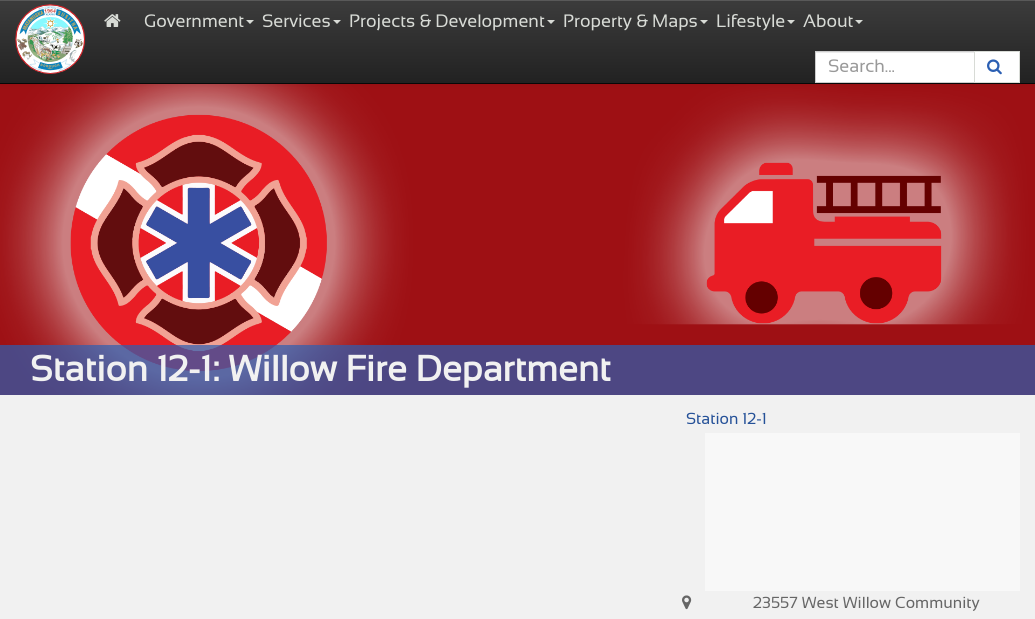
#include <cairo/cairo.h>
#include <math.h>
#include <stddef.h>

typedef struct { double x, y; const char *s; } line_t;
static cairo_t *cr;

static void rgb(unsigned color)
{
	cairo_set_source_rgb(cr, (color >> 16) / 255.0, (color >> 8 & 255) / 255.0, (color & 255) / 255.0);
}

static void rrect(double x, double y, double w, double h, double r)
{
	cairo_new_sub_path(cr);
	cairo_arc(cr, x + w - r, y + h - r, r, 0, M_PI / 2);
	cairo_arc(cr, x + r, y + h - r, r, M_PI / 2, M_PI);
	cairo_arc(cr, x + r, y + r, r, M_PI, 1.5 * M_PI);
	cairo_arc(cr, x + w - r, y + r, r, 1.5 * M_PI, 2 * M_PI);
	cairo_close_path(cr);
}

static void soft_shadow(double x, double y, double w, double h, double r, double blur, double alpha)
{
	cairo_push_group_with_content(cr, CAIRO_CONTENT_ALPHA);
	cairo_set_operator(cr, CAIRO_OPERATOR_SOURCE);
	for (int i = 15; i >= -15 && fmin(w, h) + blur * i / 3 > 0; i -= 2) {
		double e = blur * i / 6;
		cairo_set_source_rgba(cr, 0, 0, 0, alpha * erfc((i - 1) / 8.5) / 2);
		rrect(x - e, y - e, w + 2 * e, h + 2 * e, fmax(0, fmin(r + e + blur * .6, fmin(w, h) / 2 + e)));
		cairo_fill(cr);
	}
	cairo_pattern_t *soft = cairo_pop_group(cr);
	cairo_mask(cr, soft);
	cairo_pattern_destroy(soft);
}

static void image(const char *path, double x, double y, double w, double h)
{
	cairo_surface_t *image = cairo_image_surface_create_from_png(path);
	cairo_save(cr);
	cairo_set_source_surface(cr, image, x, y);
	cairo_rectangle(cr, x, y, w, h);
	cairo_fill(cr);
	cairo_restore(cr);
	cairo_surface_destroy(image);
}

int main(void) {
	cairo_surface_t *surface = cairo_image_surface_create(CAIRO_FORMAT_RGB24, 1035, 619);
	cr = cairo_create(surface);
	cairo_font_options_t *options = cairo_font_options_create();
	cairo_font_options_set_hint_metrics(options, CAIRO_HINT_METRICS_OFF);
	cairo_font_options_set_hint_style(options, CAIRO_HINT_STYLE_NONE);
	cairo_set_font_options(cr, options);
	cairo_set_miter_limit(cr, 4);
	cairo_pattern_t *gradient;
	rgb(0xf1f1f1);
	cairo_paint(cr);
	image("img/4.png", 0, 84, 1035, 311);
	rgb(0x000000);
	soft_shadow(0, 1, 1035, 84, 0, 2.5, 0.07);
	gradient = cairo_pattern_create_linear(518, 0, 518, 83);
	cairo_pattern_add_color_stop_rgba(gradient, 0, 0.235, 0.235, 0.235, 1);
	cairo_pattern_add_color_stop_rgba(gradient, 1, 0.133, 0.133, 0.133, 1);
	cairo_set_source(cr, gradient);
	cairo_pattern_destroy(gradient);
	cairo_rectangle(cr, 0, 1, 1035, 82);
	cairo_fill(cr);
	rgb(0x595959);
	cairo_rectangle(cr, 0, 0, 1035, 1);
	cairo_fill(cr);
	rgb(0x080808);
	cairo_rectangle(cr, 0, 83, 1035, 1);
	cairo_fill(cr);
	image("img/1.png", 15, 4, 70, 70);
	image("img/2.png", 104, 14, 17, 13);
	rgb(0xd8dbd6);
	cairo_new_path(cr);
	cairo_move_to(cr, 246, 20);
	cairo_line_to(cr, 254, 20);
	cairo_line_to(cr, 250, 24);
	cairo_close_path(cr);
	cairo_fill(cr);
	cairo_new_path(cr);
	cairo_move_to(cr, 333, 20);
	cairo_line_to(cr, 341, 20);
	cairo_line_to(cr, 337, 24);
	cairo_close_path(cr);
	cairo_fill(cr);
	cairo_new_path(cr);
	cairo_move_to(cr, 547, 20);
	cairo_line_to(cr, 555, 20);
	cairo_line_to(cr, 551, 24);
	cairo_close_path(cr);
	cairo_fill(cr);
	cairo_new_path(cr);
	cairo_move_to(cr, 700, 20);
	cairo_line_to(cr, 708, 20);
	cairo_line_to(cr, 704, 24);
	cairo_close_path(cr);
	cairo_fill(cr);
	cairo_new_path(cr);
	cairo_move_to(cr, 787, 20);
	cairo_line_to(cr, 795, 20);
	cairo_line_to(cr, 791, 24);
	cairo_close_path(cr);
	cairo_fill(cr);
	cairo_new_path(cr);
	cairo_move_to(cr, 855, 20);
	cairo_line_to(cr, 863, 20);
	cairo_line_to(cr, 859, 24);
	cairo_close_path(cr);
	cairo_fill(cr);
	rgb(0xffffff);
	cairo_rectangle(cr, 816, 53, 158, 29);
	cairo_fill(cr);
	rgb(0xececec);
	cairo_rectangle(cr, 816, 52, 158, 1);
	cairo_fill(cr);
	cairo_rectangle(cr, 815.5, 51.5, 159, 31);
	rgb(0xcccccc);
	cairo_set_line_width(cr, 1);
	cairo_stroke(cr);
	rgb(0xffffff);
	cairo_rectangle(cr, 974.5, 51.5, 45, 31);
	cairo_fill_preserve(cr);
	rgb(0xd8dbd6);
	cairo_stroke(cr);
	image("img/3.png", 987, 59, 15, 16);
	cairo_set_source_rgba(cr, 0.169, 0.373, 0.702, 0.7);
	cairo_rectangle(cr, 0, 345, 1035, 50);
	cairo_fill(cr);
	rgb(0xf8f8f8);
	cairo_rectangle(cr, 705, 433, 315, 158);
	cairo_fill(cr);
	image("img/5.png", 682, 595, 10, 15);
	cairo_select_font_face(cr, "Sansation", CAIRO_FONT_SLANT_NORMAL, CAIRO_FONT_WEIGHT_NORMAL);
	cairo_set_font_size(cr, 18);
	rgb(0xd8dbd6);
	{
		static const line_t items[] = {
			{144, 27, "Government"},
			{262, 27, "Services"},
			{349, 27, "Projects & Development"},
			{563, 27, "Property & Maps"},
			{716, 27, "Lifestyle"},
			{803, 27, "About"},
		};
		for (size_t i = 0; i < sizeof items / sizeof *items; i++) {
			cairo_move_to(cr, items[i].x, items[i].y);
			cairo_show_text(cr, items[i].s);
		}
	}
	rgb(0x999999);
	cairo_move_to(cr, 828, 72);
	cairo_show_text(cr, "Search...");
	cairo_select_font_face(cr, "Sansation", CAIRO_FONT_SLANT_NORMAL, CAIRO_FONT_WEIGHT_BOLD);
	cairo_set_font_size(cr, 36);
	rgb(0xf1f1f1);
	cairo_move_to(cr, 30, 381);
	cairo_show_text(cr, "Station 12-1: Willow Fire Department");
	cairo_select_font_face(cr, "Sansation", CAIRO_FONT_SLANT_NORMAL, CAIRO_FONT_WEIGHT_NORMAL);
	cairo_set_font_size(cr, 16);
	rgb(0x255198);
	cairo_move_to(cr, 686, 424);
	cairo_show_text(cr, "Station 12-1");
	rgb(0x666666);
	cairo_move_to(cr, 753, 608);
	cairo_show_text(cr, "23557 West Willow Community");
	cairo_surface_write_to_png(surface, "page.png");
	cairo_font_options_destroy(options);
	cairo_destroy(cr);
	cairo_surface_destroy(surface);
	return 0;
}
